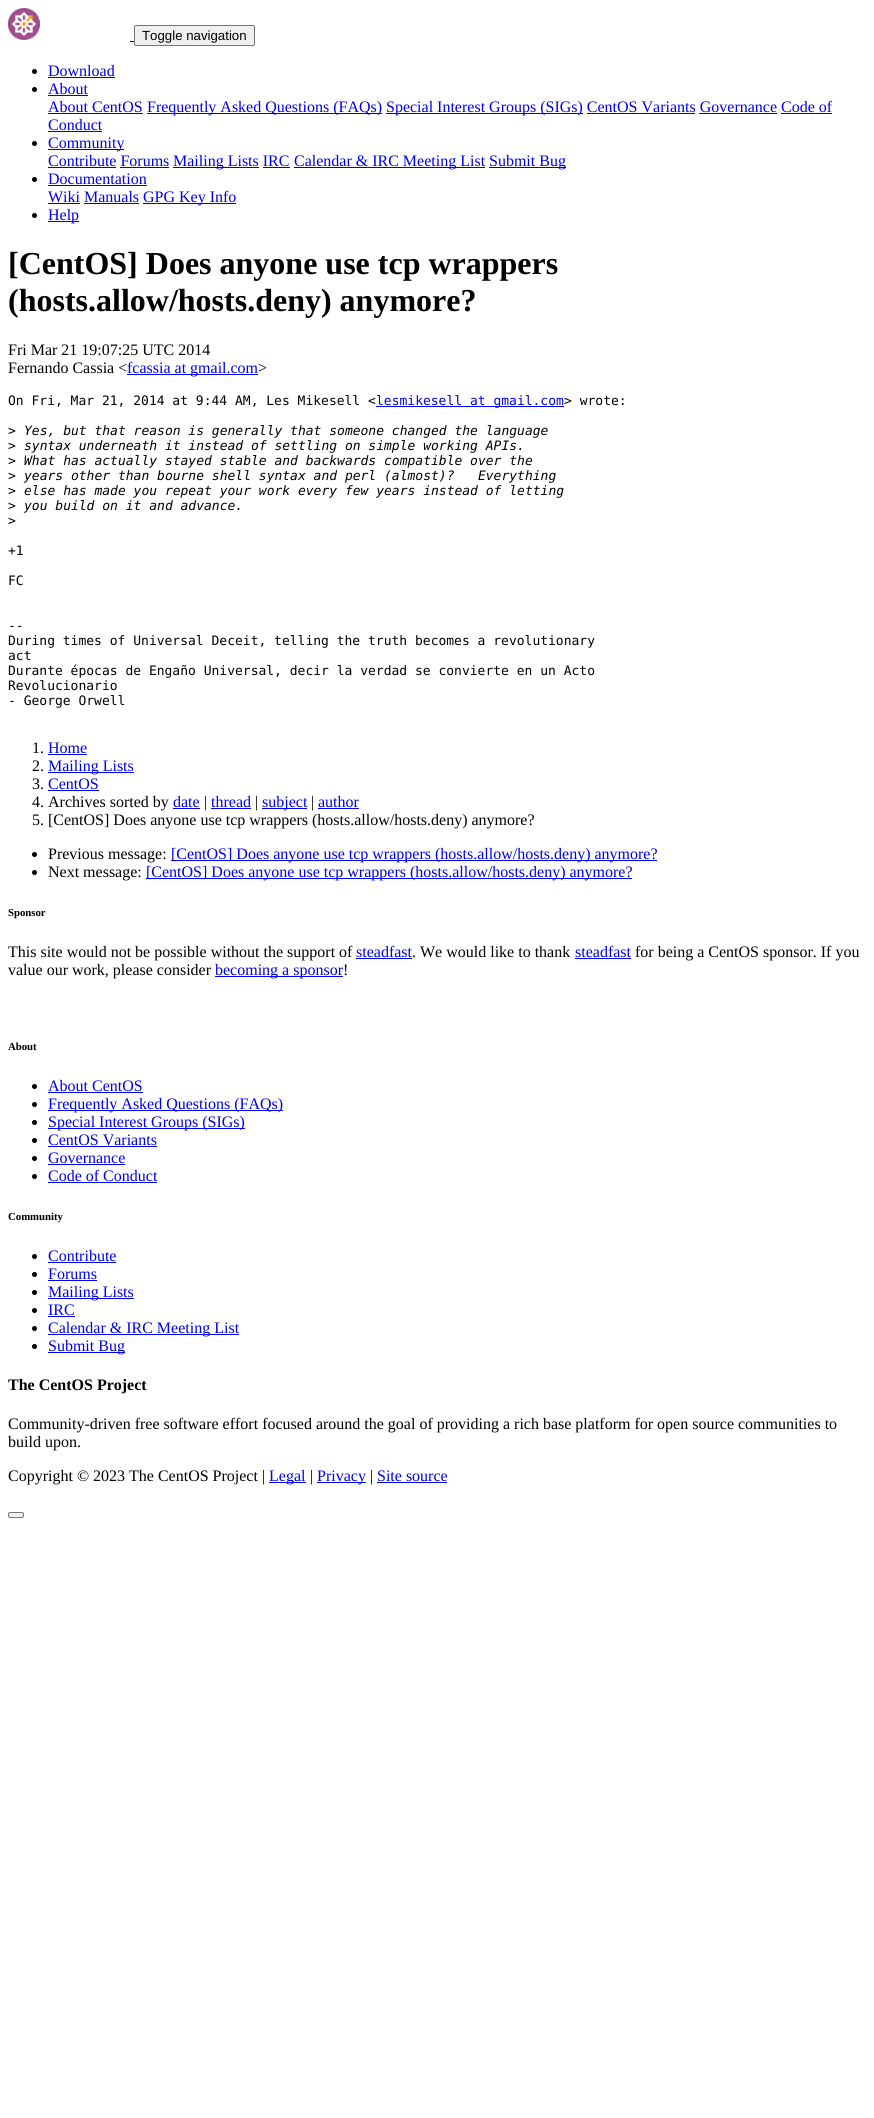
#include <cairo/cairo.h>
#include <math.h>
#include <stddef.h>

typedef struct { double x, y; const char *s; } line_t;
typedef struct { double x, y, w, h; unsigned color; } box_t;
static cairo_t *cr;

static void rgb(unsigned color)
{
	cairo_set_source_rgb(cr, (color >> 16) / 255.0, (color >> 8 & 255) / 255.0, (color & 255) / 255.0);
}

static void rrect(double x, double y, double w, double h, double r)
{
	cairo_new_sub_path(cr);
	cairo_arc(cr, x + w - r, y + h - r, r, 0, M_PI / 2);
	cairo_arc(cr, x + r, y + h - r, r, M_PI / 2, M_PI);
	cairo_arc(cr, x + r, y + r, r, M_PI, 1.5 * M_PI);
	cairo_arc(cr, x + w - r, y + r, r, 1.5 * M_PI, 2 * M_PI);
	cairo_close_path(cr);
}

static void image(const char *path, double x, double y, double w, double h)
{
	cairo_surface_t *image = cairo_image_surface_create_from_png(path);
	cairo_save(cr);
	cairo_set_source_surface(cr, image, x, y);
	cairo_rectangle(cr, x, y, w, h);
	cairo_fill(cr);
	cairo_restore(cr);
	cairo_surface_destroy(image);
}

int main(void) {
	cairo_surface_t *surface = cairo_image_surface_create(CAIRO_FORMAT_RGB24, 874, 2118);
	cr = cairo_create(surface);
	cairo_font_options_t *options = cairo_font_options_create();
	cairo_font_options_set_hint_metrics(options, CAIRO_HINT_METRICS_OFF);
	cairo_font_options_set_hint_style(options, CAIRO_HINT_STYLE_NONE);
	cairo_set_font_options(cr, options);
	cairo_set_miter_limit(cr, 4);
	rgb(0xffffff);
	cairo_paint(cr);
	image("img/1.png", 8, 8, 32, 32);
	rgb(0x0000ee);
	cairo_rectangle(cr, 130, 41, 4, 1);
	cairo_fill(cr);
	rgb(0xefefef);
	rrect(134.5, 25.5, 120, 20, 1.5);
	cairo_fill_preserve(cr);
	rgb(0x767676);
	cairo_set_line_width(cr, 1);
	cairo_stroke(cr);
	rgb(0x000000);
	cairo_arc(cr, 34.5, 71.5, 2.5, 0, 2 * M_PI);
	cairo_fill(cr);
	rgb(0x0000ee);
	cairo_rectangle(cr, 48, 77, 67, 1);
	cairo_fill(cr);
	rgb(0x000000);
	cairo_arc(cr, 34.5, 89.5, 2.5, 0, 2 * M_PI);
	cairo_fill(cr);
	{
		static const box_t items[] = {
			{48, 95, 40, 1, 0x0000ee},
			{48, 113, 95, 1, 0x0000ee},
			{147, 113, 235, 1, 0x0000ee},
			{386, 113, 197, 1, 0x0000ee},
			{587, 113, 108, 1, 0x0000ee},
			{699, 113, 78, 1, 0x0000ee},
			{781, 113, 51, 1, 0x0000ee},
			{48, 131, 54, 1, 0x0000ee},
		};
		for (size_t i = 0; i < sizeof items / sizeof *items; i++) {
			rgb(items[i].color);
			cairo_rectangle(cr, items[i].x, items[i].y, items[i].w, items[i].h);
			cairo_fill(cr);
		}
	}
	rgb(0x000000);
	cairo_arc(cr, 34.5, 143.5, 2.5, 0, 2 * M_PI);
	cairo_fill(cr);
	{
		static const box_t items[] = {
			{48, 149, 76, 1, 0x0000ee},
			{48, 167, 68, 1, 0x0000ee},
			{173, 167, 86, 1, 0x0000ee},
			{294, 167, 191, 1, 0x0000ee},
			{489, 167, 77, 1, 0x0000ee},
			{120, 167, 49, 1, 0x0000ee},
			{263, 167, 27, 1, 0x0000ee},
		};
		for (size_t i = 0; i < sizeof items / sizeof *items; i++) {
			rgb(items[i].color);
			cairo_rectangle(cr, items[i].x, items[i].y, items[i].w, items[i].h);
			cairo_fill(cr);
		}
	}
	rgb(0x000000);
	cairo_arc(cr, 34.5, 179.5, 2.5, 0, 2 * M_PI);
	cairo_fill(cr);
	{
		static const box_t items[] = {
			{48, 185, 99, 1, 0x0000ee},
			{48, 203, 32, 1, 0x0000ee},
			{143, 203, 93, 1, 0x0000ee},
			{84, 203, 55, 1, 0x0000ee},
		};
		for (size_t i = 0; i < sizeof items / sizeof *items; i++) {
			rgb(items[i].color);
			cairo_rectangle(cr, items[i].x, items[i].y, items[i].w, items[i].h);
			cairo_fill(cr);
		}
	}
	rgb(0x000000);
	cairo_arc(cr, 34.5, 215.5, 2.5, 0, 2 * M_PI);
	cairo_fill(cr);
	{
		static const box_t items[] = {
			{48, 221, 31, 1, 0x0000ee},
			{127, 374, 131, 1, 0x0000ee},
			{376, 406, 188, 1, 0x0000ee},
			{48, 754, 39, 1, 0x0000ee},
			{48, 772, 86, 1, 0x0000ee},
			{48, 790, 51, 1, 0x0000ee},
			{173, 808, 27, 1, 0x0000ee},
			{211, 808, 40, 1, 0x0000ee},
			{262, 808, 45, 1, 0x0000ee},
			{318, 808, 41, 1, 0x0000ee},
		};
		for (size_t i = 0; i < sizeof items / sizeof *items; i++) {
			rgb(items[i].color);
			cairo_rectangle(cr, items[i].x, items[i].y, items[i].w, items[i].h);
			cairo_fill(cr);
		}
	}
	rgb(0x000000);
	cairo_arc(cr, 34.5, 854.5, 2.5, 0, 2 * M_PI);
	cairo_fill(cr);
	rgb(0x0000ee);
	cairo_rectangle(cr, 171, 860, 486, 1);
	cairo_fill(cr);
	rgb(0x000000);
	cairo_arc(cr, 34.5, 872.5, 2.5, 0, 2 * M_PI);
	cairo_fill(cr);
	{
		static const box_t items[] = {
			{146, 878, 486, 1, 0x0000ee},
			{356, 958, 56, 1, 0x0000ee},
			{575, 958, 56, 1, 0x0000ee},
			{215, 976, 128, 1, 0x0000ee},
		};
		for (size_t i = 0; i < sizeof items / sizeof *items; i++) {
			rgb(items[i].color);
			cairo_rectangle(cr, items[i].x, items[i].y, items[i].w, items[i].h);
			cairo_fill(cr);
		}
	}
	rgb(0x000000);
	cairo_arc(cr, 34.5, 1086.5, 2.5, 0, 2 * M_PI);
	cairo_fill(cr);
	rgb(0x0000ee);
	cairo_rectangle(cr, 48, 1092, 95, 1);
	cairo_fill(cr);
	rgb(0x000000);
	cairo_arc(cr, 34.5, 1104.5, 2.5, 0, 2 * M_PI);
	cairo_fill(cr);
	rgb(0x0000ee);
	cairo_rectangle(cr, 48, 1110, 235, 1);
	cairo_fill(cr);
	rgb(0x000000);
	cairo_arc(cr, 34.5, 1122.5, 2.5, 0, 2 * M_PI);
	cairo_fill(cr);
	rgb(0x0000ee);
	cairo_rectangle(cr, 48, 1128, 197, 1);
	cairo_fill(cr);
	rgb(0x000000);
	cairo_arc(cr, 34.5, 1140.5, 2.5, 0, 2 * M_PI);
	cairo_fill(cr);
	rgb(0x0000ee);
	cairo_rectangle(cr, 48, 1146, 109, 1);
	cairo_fill(cr);
	rgb(0x000000);
	cairo_arc(cr, 34.5, 1158.5, 2.5, 0, 2 * M_PI);
	cairo_fill(cr);
	rgb(0x0000ee);
	cairo_rectangle(cr, 48, 1164, 77, 1);
	cairo_fill(cr);
	rgb(0x000000);
	cairo_arc(cr, 34.5, 1176.5, 2.5, 0, 2 * M_PI);
	cairo_fill(cr);
	rgb(0x0000ee);
	cairo_rectangle(cr, 48, 1182, 109, 1);
	cairo_fill(cr);
	rgb(0x000000);
	cairo_arc(cr, 34.5, 1256.5, 2.5, 0, 2 * M_PI);
	cairo_fill(cr);
	rgb(0x0000ee);
	cairo_rectangle(cr, 48, 1262, 68, 1);
	cairo_fill(cr);
	rgb(0x000000);
	cairo_arc(cr, 34.5, 1274.5, 2.5, 0, 2 * M_PI);
	cairo_fill(cr);
	rgb(0x0000ee);
	cairo_rectangle(cr, 48, 1280, 49, 1);
	cairo_fill(cr);
	rgb(0x000000);
	cairo_arc(cr, 34.5, 1292.5, 2.5, 0, 2 * M_PI);
	cairo_fill(cr);
	rgb(0x0000ee);
	cairo_rectangle(cr, 48, 1298, 86, 1);
	cairo_fill(cr);
	rgb(0x000000);
	cairo_arc(cr, 34.5, 1310.5, 2.5, 0, 2 * M_PI);
	cairo_fill(cr);
	rgb(0x0000ee);
	cairo_rectangle(cr, 48, 1316, 27, 1);
	cairo_fill(cr);
	rgb(0x000000);
	cairo_arc(cr, 34.5, 1328.5, 2.5, 0, 2 * M_PI);
	cairo_fill(cr);
	rgb(0x0000ee);
	cairo_rectangle(cr, 48, 1334, 191, 1);
	cairo_fill(cr);
	rgb(0x000000);
	cairo_arc(cr, 34.5, 1346.5, 2.5, 0, 2 * M_PI);
	cairo_fill(cr);
	{
		static const box_t items[] = {
			{48, 1352, 77, 1, 0x0000ee},
			{269, 1482, 37, 1, 0x0000ee},
			{317, 1482, 49, 1, 0x0000ee},
			{377, 1482, 70, 1, 0x0000ee},
		};
		for (size_t i = 0; i < sizeof items / sizeof *items; i++) {
			rgb(items[i].color);
			cairo_rectangle(cr, items[i].x, items[i].y, items[i].w, items[i].h);
			cairo_fill(cr);
		}
	}
	rgb(0xefefef);
	rrect(8.5, 1512.5, 15, 5, 1.5);
	cairo_fill_preserve(cr);
	rgb(0x767676);
	cairo_stroke(cr);
	cairo_select_font_face(cr, "Liberation Sans", CAIRO_FONT_SLANT_NORMAL, CAIRO_FONT_WEIGHT_NORMAL);
	cairo_set_font_size(cr, 13.25);
	rgb(0x000000);
	cairo_move_to(cr, 142, 40);
	cairo_show_text(cr, "Toggle navigation");
	cairo_select_font_face(cr, "Liberation Serif", CAIRO_FONT_SLANT_NORMAL, CAIRO_FONT_WEIGHT_NORMAL);
	cairo_set_font_size(cr, 16);
	rgb(0x0000ee);
	{
		static const line_t items[] = {
			{48, 76, "Download"},
			{48, 94, "About"},
			{48, 112, "About CentOS"},
			{147, 112, "Frequently Asked Questions (FAQs)"},
			{386, 112, "Special Interest Groups (SIGs) CentOS Variants Governance Code of"},
			{48, 130, "Conduct"},
			{48, 148, "Community"},
			{48, 166, "Contribute Forums"},
			{173, 166, "Mailing Lists IRC"},
			{294, 166, "Calendar & IRC Meeting List"},
			{489, 166, "Submit Bug"},
			{48, 184, "Documentation"},
			{48, 202, "Wiki Manuals"},
			{143, 202, "GPG Key Info"},
			{48, 220, "Help"},
		};
		for (size_t i = 0; i < sizeof items / sizeof *items; i++) {
			cairo_move_to(cr, items[i].x, items[i].y);
			cairo_show_text(cr, items[i].s);
		}
	}
	cairo_select_font_face(cr, "Liberation Serif", CAIRO_FONT_SLANT_NORMAL, CAIRO_FONT_WEIGHT_BOLD);
	cairo_set_font_size(cr, 32);
	rgb(0x000000);
	cairo_move_to(cr, 8, 274);
	cairo_show_text(cr, "[CentOS] Does anyone use tcp wrappers");
	cairo_move_to(cr, 8, 311);
	cairo_show_text(cr, "(hosts.allow/hosts.deny) anymore?");
	cairo_select_font_face(cr, "Liberation Serif", CAIRO_FONT_SLANT_NORMAL, CAIRO_FONT_WEIGHT_NORMAL);
	cairo_set_font_size(cr, 16);
	cairo_move_to(cr, 8, 355);
	cairo_show_text(cr, "Fri Mar 21 19:07:25 UTC 2014");
	cairo_move_to(cr, 8, 373);
	cairo_show_text(cr, "Fernando Cassia <");
	rgb(0x0000ee);
	cairo_move_to(cr, 127, 373);
	cairo_show_text(cr, "fcassia at gmail.com");
	rgb(0x000000);
	cairo_move_to(cr, 258, 373);
	cairo_show_text(cr, ">");
	cairo_select_font_face(cr, "DejaVu Sans Mono", CAIRO_FONT_SLANT_NORMAL, CAIRO_FONT_WEIGHT_NORMAL);
	cairo_set_font_size(cr, 13);
	cairo_move_to(cr, 8, 405);
	cairo_show_text(cr, "On Fri, Mar 21, 2014 at 9:44 AM, Les Mikesell <");
	rgb(0x0000ee);
	cairo_move_to(cr, 376, 405);
	cairo_show_text(cr, "lesmikesell at gmail.com");
	rgb(0x000000);
	cairo_move_to(cr, 564, 405);
	cairo_show_text(cr, "> wrote:");
	cairo_move_to(cr, 8, 435);
	cairo_show_text(cr, ">");
	cairo_select_font_face(cr, "DejaVu Sans Mono", CAIRO_FONT_SLANT_ITALIC, CAIRO_FONT_WEIGHT_NORMAL);
	cairo_move_to(cr, 24, 435);
	cairo_show_text(cr, "Yes, but that reason is generally that someone changed the language");
	cairo_select_font_face(cr, "DejaVu Sans Mono", CAIRO_FONT_SLANT_NORMAL, CAIRO_FONT_WEIGHT_NORMAL);
	cairo_move_to(cr, 8, 450);
	cairo_show_text(cr, ">");
	cairo_select_font_face(cr, "DejaVu Sans Mono", CAIRO_FONT_SLANT_ITALIC, CAIRO_FONT_WEIGHT_NORMAL);
	cairo_move_to(cr, 24, 450);
	cairo_show_text(cr, "syntax underneath it instead of settling on simple working APIs.");
	cairo_select_font_face(cr, "DejaVu Sans Mono", CAIRO_FONT_SLANT_NORMAL, CAIRO_FONT_WEIGHT_NORMAL);
	cairo_move_to(cr, 8, 465);
	cairo_show_text(cr, ">");
	cairo_select_font_face(cr, "DejaVu Sans Mono", CAIRO_FONT_SLANT_ITALIC, CAIRO_FONT_WEIGHT_NORMAL);
	cairo_move_to(cr, 24, 465);
	cairo_show_text(cr, "What has actually stayed stable and backwards compatible over the");
	cairo_select_font_face(cr, "DejaVu Sans Mono", CAIRO_FONT_SLANT_NORMAL, CAIRO_FONT_WEIGHT_NORMAL);
	cairo_move_to(cr, 8, 480);
	cairo_show_text(cr, ">");
	cairo_select_font_face(cr, "DejaVu Sans Mono", CAIRO_FONT_SLANT_ITALIC, CAIRO_FONT_WEIGHT_NORMAL);
	cairo_move_to(cr, 24, 480);
	cairo_show_text(cr, "years other than bourne shell syntax and perl (almost)?   Everything");
	cairo_select_font_face(cr, "DejaVu Sans Mono", CAIRO_FONT_SLANT_NORMAL, CAIRO_FONT_WEIGHT_NORMAL);
	cairo_move_to(cr, 8, 495);
	cairo_show_text(cr, ">");
	cairo_select_font_face(cr, "DejaVu Sans Mono", CAIRO_FONT_SLANT_ITALIC, CAIRO_FONT_WEIGHT_NORMAL);
	cairo_move_to(cr, 24, 495);
	cairo_show_text(cr, "else has made you repeat your work every few years instead of letting");
	cairo_select_font_face(cr, "DejaVu Sans Mono", CAIRO_FONT_SLANT_NORMAL, CAIRO_FONT_WEIGHT_NORMAL);
	cairo_move_to(cr, 8, 510);
	cairo_show_text(cr, ">");
	cairo_select_font_face(cr, "DejaVu Sans Mono", CAIRO_FONT_SLANT_ITALIC, CAIRO_FONT_WEIGHT_NORMAL);
	cairo_move_to(cr, 24, 510);
	cairo_show_text(cr, "you build on it and advance.");
	cairo_select_font_face(cr, "DejaVu Sans Mono", CAIRO_FONT_SLANT_NORMAL, CAIRO_FONT_WEIGHT_NORMAL);
	{
		static const line_t items[] = {
			{8, 525, ">"},
			{8, 555, "+1"},
			{8, 585, "FC"},
			{8, 630, "--"},
			{8, 645, "During times of Universal Deceit, telling the truth becomes a revolutionary"},
			{8, 660, "act"},
			{8, 675, "Durante épocas de Engaño Universal, decir la verdad se convierte en un Acto"},
			{8, 690, "Revolucionario"},
			{8, 705, "- George Orwell"},
		};
		for (size_t i = 0; i < sizeof items / sizeof *items; i++) {
			cairo_move_to(cr, items[i].x, items[i].y);
			cairo_show_text(cr, items[i].s);
		}
	}
	cairo_select_font_face(cr, "Liberation Serif", CAIRO_FONT_SLANT_NORMAL, CAIRO_FONT_WEIGHT_NORMAL);
	cairo_set_font_size(cr, 16);
	cairo_move_to(cr, 32, 753);
	cairo_show_text(cr, "1.");
	rgb(0x0000ee);
	cairo_move_to(cr, 48, 753);
	cairo_show_text(cr, "Home");
	rgb(0x000000);
	cairo_move_to(cr, 32, 771);
	cairo_show_text(cr, "2.");
	rgb(0x0000ee);
	cairo_move_to(cr, 48, 771);
	cairo_show_text(cr, "Mailing Lists");
	rgb(0x000000);
	cairo_move_to(cr, 32, 789);
	cairo_show_text(cr, "3.");
	rgb(0x0000ee);
	cairo_move_to(cr, 48, 789);
	cairo_show_text(cr, "CentOS");
	rgb(0x000000);
	cairo_move_to(cr, 32, 807);
	cairo_show_text(cr, "4. Archives sorted by");
	rgb(0x0000ee);
	cairo_move_to(cr, 173, 807);
	cairo_show_text(cr, "date");
	rgb(0x000000);
	cairo_move_to(cr, 204, 807);
	cairo_show_text(cr, "|");
	rgb(0x0000ee);
	cairo_move_to(cr, 211, 807);
	cairo_show_text(cr, "thread");
	rgb(0x000000);
	cairo_move_to(cr, 255, 807);
	cairo_show_text(cr, "|");
	rgb(0x0000ee);
	cairo_move_to(cr, 262, 807);
	cairo_show_text(cr, "subject");
	rgb(0x000000);
	cairo_move_to(cr, 311, 807);
	cairo_show_text(cr, "|");
	rgb(0x0000ee);
	cairo_move_to(cr, 318, 807);
	cairo_show_text(cr, "author");
	rgb(0x000000);
	cairo_move_to(cr, 32, 825);
	cairo_show_text(cr, "5. [CentOS] Does anyone use tcp wrappers (hosts.allow/hosts.deny) anymore?");
	cairo_move_to(cr, 48, 859);
	cairo_show_text(cr, "Previous message:");
	rgb(0x0000ee);
	cairo_move_to(cr, 171, 859);
	cairo_show_text(cr, "[CentOS] Does anyone use tcp wrappers (hosts.allow/hosts.deny) anymore?");
	rgb(0x000000);
	cairo_move_to(cr, 48, 877);
	cairo_show_text(cr, "Next message:");
	rgb(0x0000ee);
	cairo_move_to(cr, 146, 877);
	cairo_show_text(cr, "[CentOS] Does anyone use tcp wrappers (hosts.allow/hosts.deny) anymore?");
	cairo_select_font_face(cr, "Liberation Serif", CAIRO_FONT_SLANT_NORMAL, CAIRO_FONT_WEIGHT_BOLD);
	cairo_set_font_size(cr, 10.75);
	rgb(0x000000);
	cairo_move_to(cr, 8, 916);
	cairo_show_text(cr, "Sponsor");
	cairo_select_font_face(cr, "Liberation Serif", CAIRO_FONT_SLANT_NORMAL, CAIRO_FONT_WEIGHT_NORMAL);
	cairo_set_font_size(cr, 16);
	cairo_move_to(cr, 8, 957);
	cairo_show_text(cr, "This site would not be possible without the support of");
	rgb(0x0000ee);
	cairo_move_to(cr, 356, 957);
	cairo_show_text(cr, "steadfast");
	rgb(0x000000);
	cairo_move_to(cr, 412, 957);
	cairo_show_text(cr, ". We would like to thank");
	rgb(0x0000ee);
	cairo_move_to(cr, 575, 957);
	cairo_show_text(cr, "steadfast");
	rgb(0x000000);
	cairo_move_to(cr, 635, 957);
	cairo_show_text(cr, "for being a CentOS sponsor. If you");
	cairo_move_to(cr, 8, 975);
	cairo_show_text(cr, "value our work, please consider");
	rgb(0x0000ee);
	cairo_move_to(cr, 215, 975);
	cairo_show_text(cr, "becoming a sponsor");
	rgb(0x000000);
	cairo_move_to(cr, 343, 975);
	cairo_show_text(cr, "!");
	cairo_select_font_face(cr, "Liberation Serif", CAIRO_FONT_SLANT_NORMAL, CAIRO_FONT_WEIGHT_BOLD);
	cairo_set_font_size(cr, 10.75);
	cairo_move_to(cr, 8, 1050);
	cairo_show_text(cr, "About");
	cairo_select_font_face(cr, "Liberation Serif", CAIRO_FONT_SLANT_NORMAL, CAIRO_FONT_WEIGHT_NORMAL);
	cairo_set_font_size(cr, 16);
	rgb(0x0000ee);
	{
		static const line_t items[] = {
			{48, 1091, "About CentOS"},
			{48, 1109, "Frequently Asked Questions (FAQs)"},
			{48, 1127, "Special Interest Groups (SIGs)"},
			{48, 1145, "CentOS Variants"},
			{48, 1163, "Governance"},
			{48, 1181, "Code of Conduct"},
		};
		for (size_t i = 0; i < sizeof items / sizeof *items; i++) {
			cairo_move_to(cr, items[i].x, items[i].y);
			cairo_show_text(cr, items[i].s);
		}
	}
	cairo_select_font_face(cr, "Liberation Serif", CAIRO_FONT_SLANT_NORMAL, CAIRO_FONT_WEIGHT_BOLD);
	cairo_set_font_size(cr, 10.75);
	rgb(0x000000);
	cairo_move_to(cr, 8, 1220);
	cairo_show_text(cr, "Community");
	cairo_select_font_face(cr, "Liberation Serif", CAIRO_FONT_SLANT_NORMAL, CAIRO_FONT_WEIGHT_NORMAL);
	cairo_set_font_size(cr, 16);
	rgb(0x0000ee);
	{
		static const line_t items[] = {
			{48, 1261, "Contribute"},
			{48, 1279, "Forums"},
			{48, 1297, "Mailing Lists"},
			{48, 1315, "IRC"},
			{48, 1333, "Calendar & IRC Meeting List"},
			{48, 1351, "Submit Bug"},
		};
		for (size_t i = 0; i < sizeof items / sizeof *items; i++) {
			cairo_move_to(cr, items[i].x, items[i].y);
			cairo_show_text(cr, items[i].s);
		}
	}
	cairo_select_font_face(cr, "Liberation Serif", CAIRO_FONT_SLANT_NORMAL, CAIRO_FONT_WEIGHT_BOLD);
	rgb(0x000000);
	cairo_move_to(cr, 8, 1390);
	cairo_show_text(cr, "The CentOS Project");
	cairo_select_font_face(cr, "Liberation Serif", CAIRO_FONT_SLANT_NORMAL, CAIRO_FONT_WEIGHT_NORMAL);
	{
		static const line_t items[] = {
			{8, 1429, "Community-driven free software effort focused around the goal of providing a rich base platform for open source communities to"},
			{8, 1447, "build upon."},
			{8, 1481, "Copyright © 2023 The CentOS Project |"},
		};
		for (size_t i = 0; i < sizeof items / sizeof *items; i++) {
			cairo_move_to(cr, items[i].x, items[i].y);
			cairo_show_text(cr, items[i].s);
		}
	}
	rgb(0x0000ee);
	cairo_move_to(cr, 269, 1481);
	cairo_show_text(cr, "Legal");
	rgb(0x000000);
	cairo_move_to(cr, 310, 1481);
	cairo_show_text(cr, "|");
	rgb(0x0000ee);
	cairo_move_to(cr, 317, 1481);
	cairo_show_text(cr, "Privacy");
	rgb(0x000000);
	cairo_move_to(cr, 370, 1481);
	cairo_show_text(cr, "|");
	rgb(0x0000ee);
	cairo_move_to(cr, 377, 1481);
	cairo_show_text(cr, "Site source");
	cairo_surface_write_to_png(surface, "page.png");
	cairo_font_options_destroy(options);
	cairo_destroy(cr);
	cairo_surface_destroy(surface);
	return 0;
}
